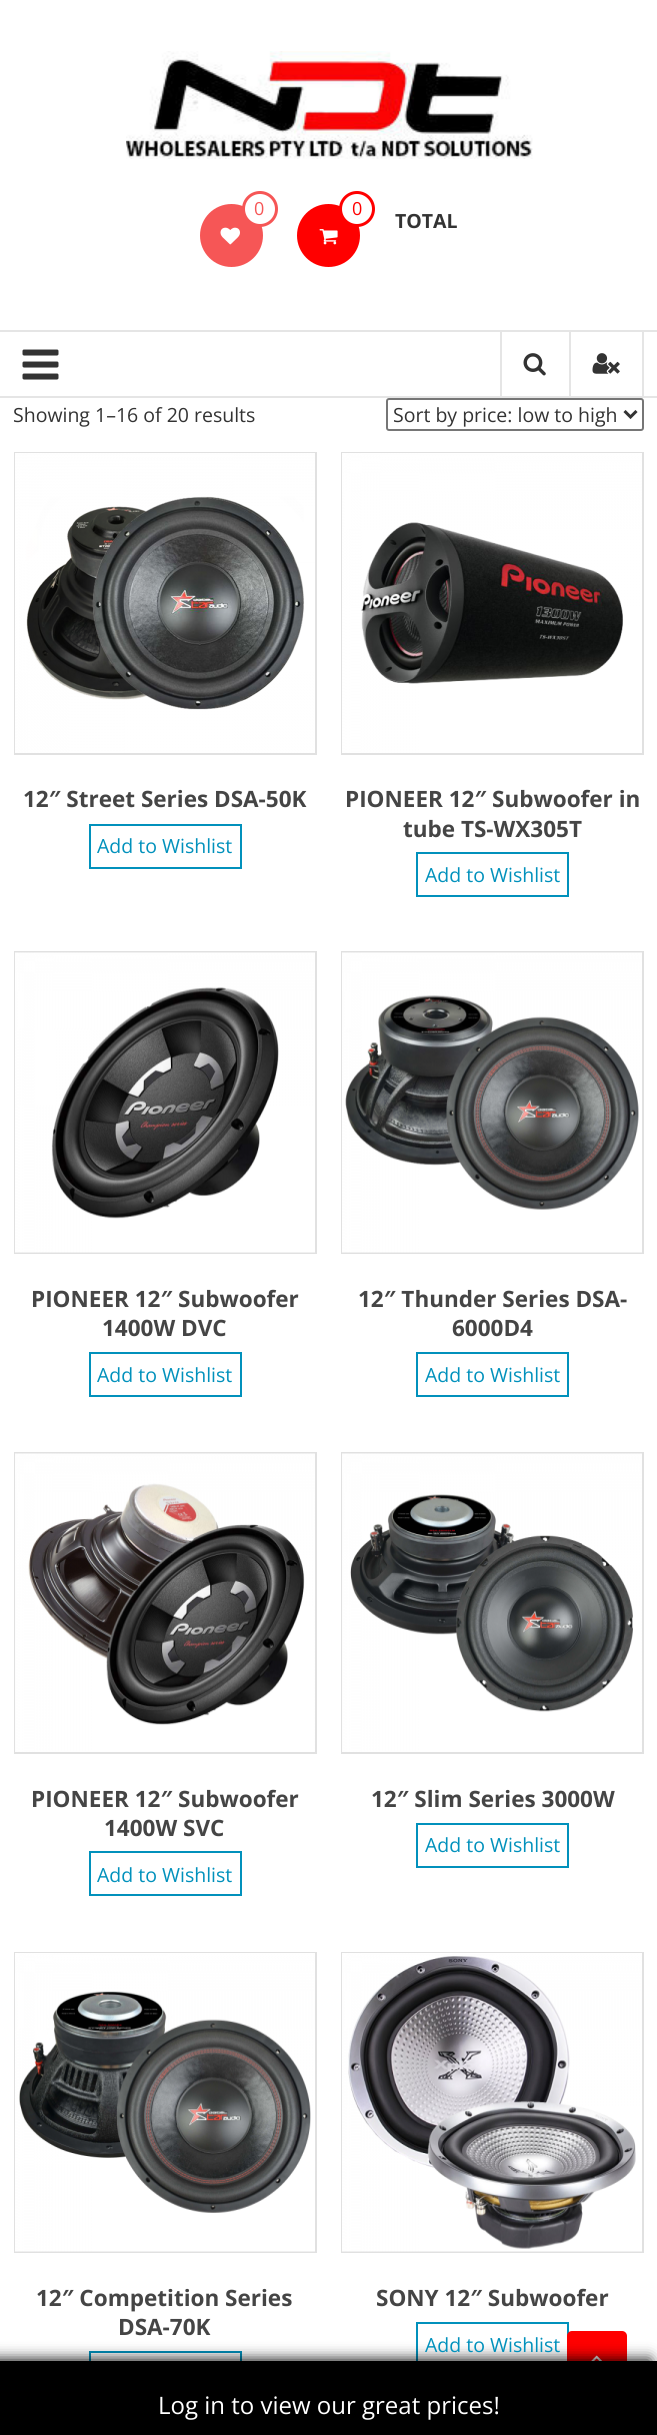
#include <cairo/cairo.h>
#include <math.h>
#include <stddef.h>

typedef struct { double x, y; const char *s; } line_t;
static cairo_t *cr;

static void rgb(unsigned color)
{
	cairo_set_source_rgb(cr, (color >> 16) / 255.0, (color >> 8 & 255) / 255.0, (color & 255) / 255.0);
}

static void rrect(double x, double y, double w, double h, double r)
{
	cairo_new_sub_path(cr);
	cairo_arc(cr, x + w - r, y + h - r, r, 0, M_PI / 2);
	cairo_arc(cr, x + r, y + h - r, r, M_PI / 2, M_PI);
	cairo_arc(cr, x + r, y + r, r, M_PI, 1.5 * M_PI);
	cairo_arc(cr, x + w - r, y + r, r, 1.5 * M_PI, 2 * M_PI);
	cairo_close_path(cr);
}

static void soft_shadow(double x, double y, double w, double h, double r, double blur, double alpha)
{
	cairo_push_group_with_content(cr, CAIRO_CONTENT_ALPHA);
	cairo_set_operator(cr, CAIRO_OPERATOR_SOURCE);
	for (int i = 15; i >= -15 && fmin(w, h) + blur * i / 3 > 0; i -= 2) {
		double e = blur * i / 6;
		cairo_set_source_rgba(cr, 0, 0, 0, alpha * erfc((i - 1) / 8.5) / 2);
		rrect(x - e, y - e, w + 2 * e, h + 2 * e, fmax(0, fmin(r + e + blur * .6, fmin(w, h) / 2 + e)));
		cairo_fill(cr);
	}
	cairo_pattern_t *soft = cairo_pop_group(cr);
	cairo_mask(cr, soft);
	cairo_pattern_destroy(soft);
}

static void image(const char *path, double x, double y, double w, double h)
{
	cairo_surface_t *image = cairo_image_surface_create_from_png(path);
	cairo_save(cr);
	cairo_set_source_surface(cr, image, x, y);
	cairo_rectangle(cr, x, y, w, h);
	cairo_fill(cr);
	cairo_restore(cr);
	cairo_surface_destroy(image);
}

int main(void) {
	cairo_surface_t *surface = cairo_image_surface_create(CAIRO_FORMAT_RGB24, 657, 2435);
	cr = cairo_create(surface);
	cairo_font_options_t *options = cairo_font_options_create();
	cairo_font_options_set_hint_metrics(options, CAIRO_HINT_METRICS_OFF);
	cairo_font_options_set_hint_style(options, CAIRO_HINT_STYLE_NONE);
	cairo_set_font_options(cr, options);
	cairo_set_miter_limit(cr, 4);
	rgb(0xffffff);
	cairo_paint(cr);
	image("img/1.png", 126, 51, 407, 108);
	rgb(0xf65656);
	cairo_arc(cr, 231.5, 235.5, 31.5, 0, 2 * M_PI);
	cairo_fill(cr);
	rgb(0xffffff);
	cairo_arc(cr, 260, 209, 16.5, 0, 2 * M_PI);
	cairo_fill_preserve(cr);
	rgb(0xf65656);
	cairo_set_line_width(cr, 3);
	cairo_stroke(cr);
	image("img/2.png", 220, 227, 20, 18);
	rgb(0xff0000);
	cairo_arc(cr, 328.5, 235.5, 31.5, 0, 2 * M_PI);
	cairo_fill(cr);
	rgb(0xffffff);
	cairo_arc(cr, 357, 209, 16.5, 0, 2 * M_PI);
	cairo_fill_preserve(cr);
	rgb(0xff0000);
	cairo_stroke(cr);
	image("img/3.png", 319, 229, 19, 16);
	rgb(0xe5e5e5);
	cairo_rectangle(cr, 0, 330, 657, 2);
	cairo_fill(cr);
	cairo_rectangle(cr, 0, 396, 657, 2);
	cairo_fill(cr);
	image("img/4.png", 22, 349, 37, 31);
	cairo_rectangle(cr, 500, 332, 2, 64);
	cairo_fill(cr);
	image("img/5.png", 523, 353, 23, 23);
	cairo_rectangle(cr, 642, 332, 2, 64);
	cairo_fill(cr);
	cairo_rectangle(cr, 569, 332, 2, 64);
	cairo_fill(cr);
	image("img/6.png", 592, 353, 28, 21);
	rrect(387, 399, 256, 31, 2);
	rgb(0x767676);
	cairo_set_line_width(cr, 2);
	cairo_stroke(cr);
	cairo_new_path(cr);
	cairo_move_to(cr, 624.5, 411);
	cairo_line_to(cr, 630.5, 417);
	cairo_line_to(cr, 636.5, 411);
	rgb(0x333333);
	cairo_set_line_width(cr, 3);
	cairo_stroke(cr);
	cairo_rectangle(cr, 15, 453, 301, 301);
	rgb(0xe1e1e1);
	cairo_set_line_width(cr, 2);
	cairo_stroke(cr);
	image("img/7.png", 15, 453, 300, 300);
	cairo_rectangle(cr, 90, 825, 151, 43);
	rgb(0x0191bc);
	cairo_stroke(cr);
	cairo_rectangle(cr, 342, 453, 301, 301);
	rgb(0xe1e1e1);
	cairo_stroke(cr);
	image("img/8.png", 342, 453, 300, 300);
	cairo_rectangle(cr, 417, 853, 151, 43);
	rgb(0x0191bc);
	cairo_stroke(cr);
	cairo_rectangle(cr, 15, 952, 301, 301);
	rgb(0xe1e1e1);
	cairo_stroke(cr);
	image("img/9.png", 15, 952, 300, 301);
	cairo_rectangle(cr, 90, 1353, 151, 43);
	rgb(0x0191bc);
	cairo_stroke(cr);
	cairo_rectangle(cr, 342, 952, 301, 301);
	rgb(0xe1e1e1);
	cairo_stroke(cr);
	image("img/10.png", 342, 952, 300, 301);
	cairo_rectangle(cr, 417, 1353, 151, 43);
	rgb(0x0191bc);
	cairo_stroke(cr);
	cairo_rectangle(cr, 15, 1453, 301, 300);
	rgb(0xe1e1e1);
	cairo_stroke(cr);
	image("img/11.png", 15, 1453, 300, 299);
	cairo_rectangle(cr, 90, 1852, 151, 43);
	rgb(0x0191bc);
	cairo_stroke(cr);
	cairo_rectangle(cr, 342, 1453, 301, 300);
	rgb(0xe1e1e1);
	cairo_stroke(cr);
	image("img/12.png", 342, 1453, 300, 299);
	cairo_rectangle(cr, 417, 1824, 151, 43);
	rgb(0x0191bc);
	cairo_stroke(cr);
	cairo_rectangle(cr, 15, 1953, 301, 299);
	rgb(0xe1e1e1);
	cairo_stroke(cr);
	image("img/13.png", 15, 1953, 300, 299);
	cairo_rectangle(cr, 90, 2352, 151, 43);
	rgb(0x0191bc);
	cairo_stroke(cr);
	cairo_rectangle(cr, 342, 1953, 301, 299);
	rgb(0xe1e1e1);
	cairo_stroke(cr);
	image("img/14.png", 342, 1953, 300, 299);
	cairo_rectangle(cr, 417, 2323, 151, 43);
	rgb(0x0191bc);
	cairo_stroke(cr);
	rgb(0xff0000);
	rrect(567, 2331, 60, 60, 5);
	cairo_fill(cr);
	image("img/15.png", 591, 2355, 11, 6);
	rgb(0x000000);
	soft_shadow(-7, 2360, 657, 75, 0, 7.5, 1);
	rgb(0x000000);
	cairo_rectangle(cr, 0, 2361, 657, 74);
	cairo_fill(cr);
	cairo_select_font_face(cr, "Open Sans", CAIRO_FONT_SLANT_NORMAL, CAIRO_FONT_WEIGHT_NORMAL);
	cairo_set_font_size(cr, 18);
	rgb(0xf65656);
	cairo_move_to(cr, 254, 215);
	cairo_show_text(cr, "0");
	rgb(0xff0000);
	cairo_move_to(cr, 352, 215);
	cairo_show_text(cr, "0");
	cairo_select_font_face(cr, "Open Sans", CAIRO_FONT_SLANT_NORMAL, CAIRO_FONT_WEIGHT_BOLD);
	cairo_set_font_size(cr, 19.5);
	rgb(0x333333);
	cairo_move_to(cr, 395, 228);
	cairo_show_text(cr, "TOTAL");
	cairo_select_font_face(cr, "Open Sans", CAIRO_FONT_SLANT_NORMAL, CAIRO_FONT_WEIGHT_NORMAL);
	cairo_move_to(cr, 13, 422);
	cairo_show_text(cr, "Showing 1–16 of 20 results");
	cairo_move_to(cr, 393, 422);
	cairo_show_text(cr, "Sort by price: low to high");
	cairo_select_font_face(cr, "Open Sans", CAIRO_FONT_SLANT_NORMAL, CAIRO_FONT_WEIGHT_BOLD);
	cairo_set_font_size(cr, 22.5);
	rgb(0x454545);
	cairo_move_to(cr, 23, 807);
	cairo_show_text(cr, "12″ Street Series DSA-50K");
	cairo_select_font_face(cr, "Open Sans", CAIRO_FONT_SLANT_NORMAL, CAIRO_FONT_WEIGHT_NORMAL);
	cairo_set_font_size(cr, 19.5);
	rgb(0x0191bc);
	cairo_move_to(cr, 97, 853);
	cairo_show_text(cr, "Add to Wishlist");
	cairo_select_font_face(cr, "Open Sans", CAIRO_FONT_SLANT_NORMAL, CAIRO_FONT_WEIGHT_BOLD);
	cairo_set_font_size(cr, 22.5);
	rgb(0x454545);
	cairo_move_to(cr, 345, 807);
	cairo_show_text(cr, "PIONEER 12″ Subwoofer in");
	cairo_move_to(cr, 403, 837);
	cairo_show_text(cr, "tube TS-WX305T");
	cairo_select_font_face(cr, "Open Sans", CAIRO_FONT_SLANT_NORMAL, CAIRO_FONT_WEIGHT_NORMAL);
	cairo_set_font_size(cr, 19.5);
	rgb(0x0191bc);
	cairo_move_to(cr, 425, 882);
	cairo_show_text(cr, "Add to Wishlist");
	cairo_select_font_face(cr, "Open Sans", CAIRO_FONT_SLANT_NORMAL, CAIRO_FONT_WEIGHT_BOLD);
	cairo_set_font_size(cr, 22.5);
	rgb(0x454545);
	cairo_move_to(cr, 31, 1307);
	cairo_show_text(cr, "PIONEER 12″ Subwoofer");
	cairo_move_to(cr, 102, 1336);
	cairo_show_text(cr, "1400W DVC");
	cairo_select_font_face(cr, "Open Sans", CAIRO_FONT_SLANT_NORMAL, CAIRO_FONT_WEIGHT_NORMAL);
	cairo_set_font_size(cr, 19.5);
	rgb(0x0191bc);
	cairo_move_to(cr, 97, 1382);
	cairo_show_text(cr, "Add to Wishlist");
	cairo_select_font_face(cr, "Open Sans", CAIRO_FONT_SLANT_NORMAL, CAIRO_FONT_WEIGHT_BOLD);
	cairo_set_font_size(cr, 22.5);
	rgb(0x454545);
	cairo_move_to(cr, 358, 1307);
	cairo_show_text(cr, "12″ Thunder Series DSA-");
	cairo_move_to(cr, 452, 1336);
	cairo_show_text(cr, "6000D4");
	cairo_select_font_face(cr, "Open Sans", CAIRO_FONT_SLANT_NORMAL, CAIRO_FONT_WEIGHT_NORMAL);
	cairo_set_font_size(cr, 19.5);
	rgb(0x0191bc);
	cairo_move_to(cr, 425, 1382);
	cairo_show_text(cr, "Add to Wishlist");
	cairo_select_font_face(cr, "Open Sans", CAIRO_FONT_SLANT_NORMAL, CAIRO_FONT_WEIGHT_BOLD);
	cairo_set_font_size(cr, 22.5);
	rgb(0x454545);
	cairo_move_to(cr, 31, 1807);
	cairo_show_text(cr, "PIONEER 12″ Subwoofer");
	cairo_move_to(cr, 104, 1836);
	cairo_show_text(cr, "1400W SVC");
	cairo_select_font_face(cr, "Open Sans", CAIRO_FONT_SLANT_NORMAL, CAIRO_FONT_WEIGHT_NORMAL);
	cairo_set_font_size(cr, 19.5);
	rgb(0x0191bc);
	cairo_move_to(cr, 97, 1882);
	cairo_show_text(cr, "Add to Wishlist");
	cairo_select_font_face(cr, "Open Sans", CAIRO_FONT_SLANT_NORMAL, CAIRO_FONT_WEIGHT_BOLD);
	cairo_set_font_size(cr, 22.5);
	rgb(0x454545);
	cairo_move_to(cr, 371, 1807);
	cairo_show_text(cr, "12″ Slim Series 3000W");
	cairo_select_font_face(cr, "Open Sans", CAIRO_FONT_SLANT_NORMAL, CAIRO_FONT_WEIGHT_NORMAL);
	cairo_set_font_size(cr, 19.5);
	rgb(0x0191bc);
	cairo_move_to(cr, 425, 1852);
	cairo_show_text(cr, "Add to Wishlist");
	cairo_select_font_face(cr, "Open Sans", CAIRO_FONT_SLANT_NORMAL, CAIRO_FONT_WEIGHT_BOLD);
	cairo_set_font_size(cr, 22.5);
	rgb(0x454545);
	{
		static const line_t items[] = {
			{36, 2306, "12″ Competition Series"},
			{118, 2335, "DSA-70K"},
			{376, 2306, "SONY 12″ Subwoofer"},
		};
		for (size_t i = 0; i < sizeof items / sizeof *items; i++) {
			cairo_move_to(cr, items[i].x, items[i].y);
			cairo_show_text(cr, items[i].s);
		}
	}
	cairo_select_font_face(cr, "Open Sans", CAIRO_FONT_SLANT_NORMAL, CAIRO_FONT_WEIGHT_NORMAL);
	cairo_set_font_size(cr, 19.5);
	rgb(0x0191bc);
	cairo_move_to(cr, 425, 2352);
	cairo_show_text(cr, "Add to Wishlist");
	cairo_set_font_size(cr, 24);
	rgb(0xffffff);
	cairo_move_to(cr, 158, 2414);
	cairo_show_text(cr, "Log in to view our great prices!");
	cairo_surface_write_to_png(surface, "page.png");
	cairo_font_options_destroy(options);
	cairo_destroy(cr);
	cairo_surface_destroy(surface);
	return 0;
}
